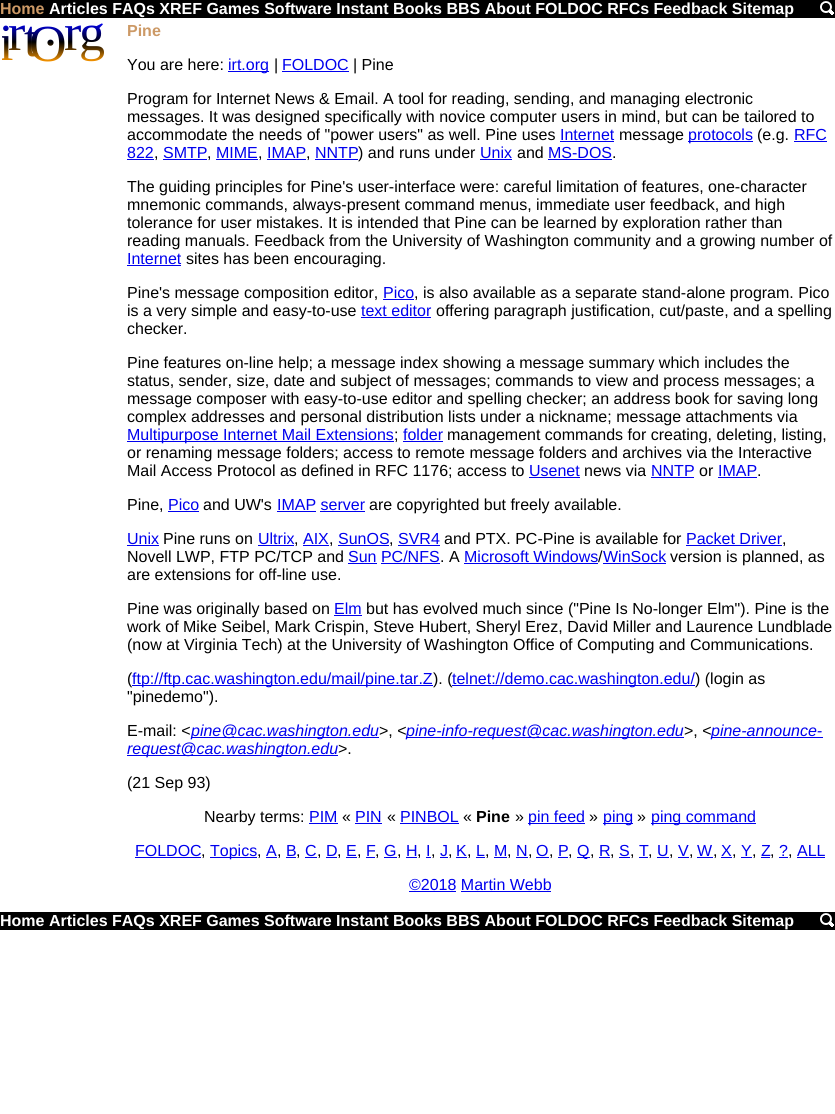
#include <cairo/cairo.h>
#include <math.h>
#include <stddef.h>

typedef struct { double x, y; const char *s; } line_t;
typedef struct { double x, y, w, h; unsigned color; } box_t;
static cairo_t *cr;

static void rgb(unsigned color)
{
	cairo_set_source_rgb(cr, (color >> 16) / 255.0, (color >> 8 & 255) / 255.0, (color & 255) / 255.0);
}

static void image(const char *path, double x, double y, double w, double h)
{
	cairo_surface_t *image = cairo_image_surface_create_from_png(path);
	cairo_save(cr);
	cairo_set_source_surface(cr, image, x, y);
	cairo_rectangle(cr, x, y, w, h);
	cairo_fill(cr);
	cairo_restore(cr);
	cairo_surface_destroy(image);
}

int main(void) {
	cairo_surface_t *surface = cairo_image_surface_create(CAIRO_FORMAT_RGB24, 835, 1114);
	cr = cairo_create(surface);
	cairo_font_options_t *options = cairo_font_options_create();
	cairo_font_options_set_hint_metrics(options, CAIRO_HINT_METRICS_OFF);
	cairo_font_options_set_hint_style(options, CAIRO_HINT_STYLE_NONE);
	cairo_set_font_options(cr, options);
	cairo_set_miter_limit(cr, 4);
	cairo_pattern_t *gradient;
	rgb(0xffffff);
	cairo_paint(cr);
	rgb(0x000000);
	cairo_rectangle(cr, 0, 0, 835, 18);
	cairo_fill(cr);
	image("img/1.png", 820, 1, 14, 14);
	{
		static const box_t items[] = {
			{228, 71, 41, 1, 0x0000ee},
			{282, 71, 67, 1, 0x0000ee},
			{560, 141, 54, 1, 0x0000ee},
			{688, 141, 65, 1, 0x0000ee},
			{794, 141, 33, 1, 0x0000ee},
			{127, 159, 27, 1, 0x0000ee},
			{163, 159, 44, 1, 0x0000ee},
			{216, 159, 42, 1, 0x0000ee},
			{267, 159, 39, 1, 0x0000ee},
			{315, 159, 43, 1, 0x0000ee},
			{480, 159, 32, 1, 0x0000ee},
			{548, 159, 64, 1, 0x0000ee},
			{127, 265, 54, 1, 0x0000ee},
			{383, 299, 31, 1, 0x0000ee},
			{361, 317, 70, 1, 0x0000ee},
			{127, 441, 267, 1, 0x0000ee},
			{403, 441, 40, 1, 0x0000ee},
			{529, 477, 51, 1, 0x0000ee},
			{651, 477, 43, 1, 0x0000ee},
			{718, 477, 39, 1, 0x0000ee},
			{168, 511, 31, 1, 0x0000ee},
			{277, 511, 39, 1, 0x0000ee},
			{320, 511, 45, 1, 0x0000ee},
			{127, 545, 32, 1, 0x0000ee},
			{258, 545, 36, 1, 0x0000ee},
			{303, 545, 26, 1, 0x0000ee},
			{338, 545, 51, 1, 0x0000ee},
			{398, 545, 42, 1, 0x0000ee},
			{686, 545, 96, 1, 0x0000ee},
			{348, 563, 29, 1, 0x0000ee},
			{464, 563, 134, 1, 0x0000ee},
			{603, 563, 63, 1, 0x0000ee},
			{381, 563, 59, 1, 0x0000ee},
			{334, 615, 28, 1, 0x0000ee},
			{191, 737, 188, 1, 0x0000ee},
			{406, 737, 278, 1, 0x0000ee},
			{711, 737, 112, 1, 0x0000ee},
			{127, 755, 211, 1, 0x0000ee},
			{309, 823, 29, 1, 0x0000ee},
			{355, 823, 27, 1, 0x0000ee},
			{400, 823, 59, 1, 0x0000ee},
			{528, 823, 57, 1, 0x0000ee},
			{603, 823, 30, 1, 0x0000ee},
			{651, 823, 105, 1, 0x0000ee},
			{135, 857, 66, 1, 0x0000ee},
			{210, 857, 47, 1, 0x0000ee},
			{266, 857, 11, 1, 0x0000ee},
			{286, 857, 10, 1, 0x0000ee},
			{305, 857, 12, 1, 0x0000ee},
			{326, 857, 11, 1, 0x0000ee},
			{346, 857, 11, 1, 0x0000ee},
			{366, 857, 9, 1, 0x0000ee},
			{384, 857, 13, 1, 0x0000ee},
			{406, 857, 11, 1, 0x0000ee},
			{426, 857, 5, 1, 0x0000ee},
			{440, 857, 8, 1, 0x0000ee},
			{456, 857, 11, 1, 0x0000ee},
			{476, 857, 9, 1, 0x0000ee},
			{494, 857, 13, 1, 0x0000ee},
			{516, 857, 12, 1, 0x0000ee},
			{536, 857, 13, 1, 0x0000ee},
			{558, 857, 10, 1, 0x0000ee},
			{577, 857, 13, 1, 0x0000ee},
			{599, 857, 11, 1, 0x0000ee},
			{619, 857, 11, 1, 0x0000ee},
			{639, 857, 9, 1, 0x0000ee},
			{657, 857, 12, 1, 0x0000ee},
			{678, 857, 11, 1, 0x0000ee},
			{697, 857, 16, 1, 0x0000ee},
			{721, 857, 11, 1, 0x0000ee},
			{741, 857, 11, 1, 0x0000ee},
			{761, 857, 9, 1, 0x0000ee},
			{779, 857, 9, 1, 0x0000ee},
			{797, 857, 28, 1, 0x0000ee},
			{409, 891, 47, 1, 0x0000ee},
			{461, 891, 90, 1, 0x0000ee},
			{0, 912, 835, 18, 0x000000},
		};
		for (size_t i = 0; i < sizeof items / sizeof *items; i++) {
			rgb(items[i].color);
			cairo_rectangle(cr, items[i].x, items[i].y, items[i].w, items[i].h);
			cairo_fill(cr);
		}
	}
	image("img/1.png", 820, 913, 14, 14);
	cairo_select_font_face(cr, "Liberation Sans", CAIRO_FONT_SLANT_NORMAL, CAIRO_FONT_WEIGHT_BOLD);
	cairo_set_font_size(cr, 16);
	rgb(0xcc9966);
	cairo_move_to(cr, 0, 14);
	cairo_show_text(cr, "Home");
	rgb(0xffffff);
	cairo_move_to(cr, 49, 14);
	cairo_show_text(cr, "Articles FAQs XREF Games Software Instant Books BBS About FOLDOC RFCs Feedback Sitemap");
	cairo_save(cr);
	cairo_rectangle(cr, 2, 22, 120, 45);
	cairo_clip(cr);
	cairo_select_font_face(cr, "Liberation Serif", CAIRO_FONT_SLANT_NORMAL, CAIRO_FONT_WEIGHT_NORMAL);
	cairo_set_font_size(cr, 52);
	gradient = cairo_pattern_create_linear(2, 22, 2, 62);
	cairo_pattern_add_color_stop_rgba(gradient, 0, 0, 0, 1, 1);
	cairo_pattern_add_color_stop_rgba(gradient, 0.5, 0, 0, 0, 1);
	cairo_pattern_add_color_stop_rgba(gradient, 1, 1, 0.6, 0, 1);
	cairo_set_source(cr, gradient);
	cairo_pattern_destroy(gradient);
	cairo_move_to(cr, -1, 60);
	cairo_show_text(cr, "i");
	cairo_restore(cr);
	cairo_select_font_face(cr, "Liberation Serif", CAIRO_FONT_SLANT_NORMAL, CAIRO_FONT_WEIGHT_NORMAL);
	cairo_set_font_size(cr, 52);
	gradient = cairo_pattern_create_linear(2, 22, 2, 62);
	cairo_pattern_add_color_stop_rgba(gradient, 0, 0, 0, 1, 1);
	cairo_pattern_add_color_stop_rgba(gradient, 0.5, 0, 0, 0, 1);
	cairo_pattern_add_color_stop_rgba(gradient, 1, 1, 0.6, 0, 1);
	cairo_set_source(cr, gradient);
	cairo_pattern_destroy(gradient);
	{
		static const line_t items[] = {
			{8, 50, "r"},
			{24, 56, "t"},
			{79, 50, "g"},
			{44, 45, "."},
			{29, 61, "O"},
			{64, 50, "r"},
		};
		for (size_t i = 0; i < sizeof items / sizeof *items; i++) {
			cairo_move_to(cr, items[i].x, items[i].y);
			cairo_show_text(cr, items[i].s);
		}
	}
	cairo_select_font_face(cr, "Liberation Sans", CAIRO_FONT_SLANT_NORMAL, CAIRO_FONT_WEIGHT_BOLD);
	cairo_set_font_size(cr, 16);
	rgb(0xcc9966);
	cairo_move_to(cr, 127, 36);
	cairo_show_text(cr, "Pine");
	cairo_select_font_face(cr, "Liberation Sans", CAIRO_FONT_SLANT_NORMAL, CAIRO_FONT_WEIGHT_NORMAL);
	rgb(0x000000);
	cairo_move_to(cr, 127, 70);
	cairo_show_text(cr, "You are here:");
	rgb(0x0000ee);
	cairo_move_to(cr, 228, 70);
	cairo_show_text(cr, "irt.org");
	rgb(0x000000);
	cairo_move_to(cr, 274, 70);
	cairo_show_text(cr, "|");
	rgb(0x0000ee);
	cairo_move_to(cr, 282, 70);
	cairo_show_text(cr, "FOLDOC");
	rgb(0x000000);
	{
		static const line_t items[] = {
			{353, 70, "| Pine"},
			{127, 104, "Program for Internet News & Email. A tool for reading, sending, and managing electronic"},
			{127, 122, "messages. It was designed specifically with novice computer users in mind, but can be tailored to"},
			{127, 140, "accommodate the needs of \"power users\" as well. Pine uses"},
		};
		for (size_t i = 0; i < sizeof items / sizeof *items; i++) {
			cairo_move_to(cr, items[i].x, items[i].y);
			cairo_show_text(cr, items[i].s);
		}
	}
	rgb(0x0000ee);
	cairo_move_to(cr, 560, 140);
	cairo_show_text(cr, "Internet");
	rgb(0x000000);
	cairo_move_to(cr, 619, 140);
	cairo_show_text(cr, "message");
	rgb(0x0000ee);
	cairo_move_to(cr, 688, 140);
	cairo_show_text(cr, "protocols");
	rgb(0x000000);
	cairo_move_to(cr, 757, 140);
	cairo_show_text(cr, "(e.g.");
	rgb(0x0000ee);
	{
		static const line_t items[] = {
			{794, 140, "RFC"},
			{127, 158, "822"},
			{163, 158, "SMTP"},
			{216, 158, "MIME"},
			{267, 158, "IMAP"},
			{315, 158, "NNTP"},
		};
		for (size_t i = 0; i < sizeof items / sizeof *items; i++) {
			cairo_move_to(cr, items[i].x, items[i].y);
			cairo_show_text(cr, items[i].s);
		}
	}
	rgb(0x000000);
	cairo_move_to(cr, 358, 158);
	cairo_show_text(cr, ") and runs under");
	rgb(0x0000ee);
	cairo_move_to(cr, 480, 158);
	cairo_show_text(cr, "Unix");
	rgb(0x000000);
	cairo_move_to(cr, 517, 158);
	cairo_show_text(cr, "and");
	rgb(0x0000ee);
	cairo_move_to(cr, 548, 158);
	cairo_show_text(cr, "MS-DOS");
	rgb(0x000000);
	{
		static const line_t items[] = {
			{154, 158, ","},
			{207, 158, ","},
			{258, 158, ","},
			{306, 158, ","},
			{612, 158, "."},
			{127, 192, "The guiding principles for Pine's user-interface were: careful limitation of features, one-character"},
			{127, 210, "mnemonic commands, always-present command menus, immediate user feedback, and high"},
			{127, 228, "tolerance for user mistakes. It is intended that Pine can be learned by exploration rather than"},
			{127, 246, "reading manuals. Feedback from the University of Washington community and a growing number of"},
		};
		for (size_t i = 0; i < sizeof items / sizeof *items; i++) {
			cairo_move_to(cr, items[i].x, items[i].y);
			cairo_show_text(cr, items[i].s);
		}
	}
	rgb(0x0000ee);
	cairo_move_to(cr, 127, 264);
	cairo_show_text(cr, "Internet");
	rgb(0x000000);
	cairo_move_to(cr, 186, 264);
	cairo_show_text(cr, "sites has been encouraging.");
	cairo_move_to(cr, 127, 298);
	cairo_show_text(cr, "Pine's message composition editor,");
	rgb(0x0000ee);
	cairo_move_to(cr, 383, 298);
	cairo_show_text(cr, "Pico");
	rgb(0x000000);
	cairo_move_to(cr, 414, 298);
	cairo_show_text(cr, ", is also available as a separate stand-alone program. Pico");
	cairo_move_to(cr, 127, 316);
	cairo_show_text(cr, "is a very simple and easy-to-use");
	rgb(0x0000ee);
	cairo_move_to(cr, 361, 316);
	cairo_show_text(cr, "text editor");
	rgb(0x000000);
	{
		static const line_t items[] = {
			{436, 316, "offering paragraph justification, cut/paste, and a spelling"},
			{127, 334, "checker."},
			{127, 368, "Pine features on-line help; a message index showing a message summary which includes the"},
			{127, 386, "status, sender, size, date and subject of messages; commands to view and process messages; a"},
			{127, 404, "message composer with easy-to-use editor and spelling checker; an address book for saving long"},
			{127, 422, "complex addresses and personal distribution lists under a nickname; message attachments via"},
		};
		for (size_t i = 0; i < sizeof items / sizeof *items; i++) {
			cairo_move_to(cr, items[i].x, items[i].y);
			cairo_show_text(cr, items[i].s);
		}
	}
	rgb(0x0000ee);
	cairo_move_to(cr, 127, 440);
	cairo_show_text(cr, "Multipurpose Internet Mail Extensions");
	rgb(0x000000);
	cairo_move_to(cr, 394, 440);
	cairo_show_text(cr, ";");
	rgb(0x0000ee);
	cairo_move_to(cr, 403, 440);
	cairo_show_text(cr, "folder");
	rgb(0x000000);
	{
		static const line_t items[] = {
			{447, 440, "management commands for creating, deleting, listing,"},
			{127, 458, "or renaming message folders; access to remote message folders and archives via the Interactive"},
			{127, 476, "Mail Access Protocol as defined in RFC 1176; access to"},
		};
		for (size_t i = 0; i < sizeof items / sizeof *items; i++) {
			cairo_move_to(cr, items[i].x, items[i].y);
			cairo_show_text(cr, items[i].s);
		}
	}
	rgb(0x0000ee);
	cairo_move_to(cr, 529, 476);
	cairo_show_text(cr, "Usenet");
	rgb(0x000000);
	cairo_move_to(cr, 584, 476);
	cairo_show_text(cr, "news via");
	rgb(0x0000ee);
	cairo_move_to(cr, 651, 476);
	cairo_show_text(cr, "NNTP");
	rgb(0x000000);
	cairo_move_to(cr, 699, 476);
	cairo_show_text(cr, "or");
	rgb(0x0000ee);
	cairo_move_to(cr, 718, 476);
	cairo_show_text(cr, "IMAP");
	rgb(0x000000);
	cairo_move_to(cr, 757, 476);
	cairo_show_text(cr, ".");
	cairo_move_to(cr, 127, 510);
	cairo_show_text(cr, "Pine,");
	rgb(0x0000ee);
	cairo_move_to(cr, 168, 510);
	cairo_show_text(cr, "Pico");
	rgb(0x000000);
	cairo_move_to(cr, 203, 510);
	cairo_show_text(cr, "and UW's");
	rgb(0x0000ee);
	cairo_move_to(cr, 277, 510);
	cairo_show_text(cr, "IMAP server");
	rgb(0x000000);
	cairo_move_to(cr, 369, 510);
	cairo_show_text(cr, "are copyrighted but freely available.");
	rgb(0x0000ee);
	cairo_move_to(cr, 127, 544);
	cairo_show_text(cr, "Unix");
	rgb(0x000000);
	cairo_move_to(cr, 163, 544);
	cairo_show_text(cr, "Pine runs on");
	rgb(0x0000ee);
	{
		static const line_t items[] = {
			{258, 544, "Ultrix"},
			{303, 544, "AIX"},
			{338, 544, "SunOS"},
			{398, 544, "SVR4"},
		};
		for (size_t i = 0; i < sizeof items / sizeof *items; i++) {
			cairo_move_to(cr, items[i].x, items[i].y);
			cairo_show_text(cr, items[i].s);
		}
	}
	rgb(0x000000);
	cairo_move_to(cr, 444, 544);
	cairo_show_text(cr, "and PTX. PC-Pine is available for");
	rgb(0x0000ee);
	cairo_move_to(cr, 686, 544);
	cairo_show_text(cr, "Packet Driver");
	rgb(0x000000);
	{
		static const line_t items[] = {
			{294, 544, ","},
			{329, 544, ","},
			{389, 544, ","},
			{782, 544, ","},
			{127, 562, "Novell LWP, FTP PC/TCP and"},
		};
		for (size_t i = 0; i < sizeof items / sizeof *items; i++) {
			cairo_move_to(cr, items[i].x, items[i].y);
			cairo_show_text(cr, items[i].s);
		}
	}
	rgb(0x0000ee);
	cairo_move_to(cr, 348, 562);
	cairo_show_text(cr, "Sun PC/NFS");
	rgb(0x000000);
	cairo_move_to(cr, 440, 562);
	cairo_show_text(cr, ". A");
	rgb(0x0000ee);
	cairo_move_to(cr, 464, 562);
	cairo_show_text(cr, "Microsoft Windows");
	rgb(0x000000);
	cairo_move_to(cr, 598, 562);
	cairo_show_text(cr, "/");
	rgb(0x0000ee);
	cairo_move_to(cr, 603, 562);
	cairo_show_text(cr, "WinSock");
	rgb(0x000000);
	{
		static const line_t items[] = {
			{670, 562, "version is planned, as"},
			{127, 580, "are extensions for off-line use."},
			{127, 614, "Pine was originally based on"},
		};
		for (size_t i = 0; i < sizeof items / sizeof *items; i++) {
			cairo_move_to(cr, items[i].x, items[i].y);
			cairo_show_text(cr, items[i].s);
		}
	}
	rgb(0x0000ee);
	cairo_move_to(cr, 334, 614);
	cairo_show_text(cr, "Elm");
	rgb(0x000000);
	{
		static const line_t items[] = {
			{366, 614, "but has evolved much since (\"Pine Is No-longer Elm\"). Pine is the"},
			{127, 632, "work of Mike Seibel, Mark Crispin, Steve Hubert, Sheryl Erez, David Miller and Laurence Lundblade"},
			{127, 650, "(now at Virginia Tech) at the University of Washington Office of Computing and Communications."},
			{127, 684, "("},
		};
		for (size_t i = 0; i < sizeof items / sizeof *items; i++) {
			cairo_move_to(cr, items[i].x, items[i].y);
			cairo_show_text(cr, items[i].s);
		}
	}
	rgb(0x0000ee);
	cairo_rectangle(cr, 132, 685, 301, 1);
	cairo_fill(cr);
	cairo_move_to(cr, 132, 684);
	cairo_show_text(cr, "ftp://ftp.cac.washington.edu/mail/pine.tar.Z");
	rgb(0x000000);
	cairo_move_to(cr, 433, 684);
	cairo_show_text(cr, "). (");
	rgb(0x0000ee);
	cairo_rectangle(cr, 452, 685, 243, 1);
	cairo_fill(cr);
	cairo_move_to(cr, 452, 684);
	cairo_show_text(cr, "telnet://demo.cac.washington.edu/");
	rgb(0x000000);
	{
		static const line_t items[] = {
			{695, 684, ") (login as"},
			{127, 702, "\"pinedemo\")."},
			{127, 736, "E-mail: <"},
		};
		for (size_t i = 0; i < sizeof items / sizeof *items; i++) {
			cairo_move_to(cr, items[i].x, items[i].y);
			cairo_show_text(cr, items[i].s);
		}
	}
	cairo_select_font_face(cr, "Liberation Sans", CAIRO_FONT_SLANT_ITALIC, CAIRO_FONT_WEIGHT_NORMAL);
	rgb(0x0000ee);
	cairo_move_to(cr, 191, 736);
	cairo_show_text(cr, "pine@cac.washington.edu");
	cairo_select_font_face(cr, "Liberation Sans", CAIRO_FONT_SLANT_NORMAL, CAIRO_FONT_WEIGHT_NORMAL);
	rgb(0x000000);
	cairo_move_to(cr, 379, 736);
	cairo_show_text(cr, ">, <");
	cairo_select_font_face(cr, "Liberation Sans", CAIRO_FONT_SLANT_ITALIC, CAIRO_FONT_WEIGHT_NORMAL);
	rgb(0x0000ee);
	cairo_move_to(cr, 406, 736);
	cairo_show_text(cr, "pine-info-request@cac.washington.edu");
	cairo_select_font_face(cr, "Liberation Sans", CAIRO_FONT_SLANT_NORMAL, CAIRO_FONT_WEIGHT_NORMAL);
	rgb(0x000000);
	cairo_move_to(cr, 684, 736);
	cairo_show_text(cr, ">, <");
	cairo_select_font_face(cr, "Liberation Sans", CAIRO_FONT_SLANT_ITALIC, CAIRO_FONT_WEIGHT_NORMAL);
	rgb(0x0000ee);
	cairo_move_to(cr, 711, 736);
	cairo_show_text(cr, "pine-announce-");
	cairo_move_to(cr, 127, 754);
	cairo_show_text(cr, "request@cac.washington.edu");
	cairo_select_font_face(cr, "Liberation Sans", CAIRO_FONT_SLANT_NORMAL, CAIRO_FONT_WEIGHT_NORMAL);
	rgb(0x000000);
	{
		static const line_t items[] = {
			{338, 754, ">."},
			{127, 788, "(21 Sep 93)"},
			{204, 822, "Nearby terms:"},
		};
		for (size_t i = 0; i < sizeof items / sizeof *items; i++) {
			cairo_move_to(cr, items[i].x, items[i].y);
			cairo_show_text(cr, items[i].s);
		}
	}
	rgb(0x0000ee);
	cairo_move_to(cr, 309, 822);
	cairo_show_text(cr, "PIM");
	rgb(0x000000);
	cairo_move_to(cr, 342, 822);
	cairo_show_text(cr, "«");
	rgb(0x0000ee);
	cairo_move_to(cr, 355, 822);
	cairo_show_text(cr, "PIN");
	rgb(0x000000);
	cairo_move_to(cr, 387, 822);
	cairo_show_text(cr, "«");
	rgb(0x0000ee);
	cairo_move_to(cr, 400, 822);
	cairo_show_text(cr, "PINBOL");
	rgb(0x000000);
	cairo_move_to(cr, 463, 822);
	cairo_show_text(cr, "«");
	cairo_select_font_face(cr, "Liberation Sans", CAIRO_FONT_SLANT_NORMAL, CAIRO_FONT_WEIGHT_BOLD);
	cairo_move_to(cr, 476, 822);
	cairo_show_text(cr, "Pine");
	cairo_select_font_face(cr, "Liberation Sans", CAIRO_FONT_SLANT_NORMAL, CAIRO_FONT_WEIGHT_NORMAL);
	cairo_move_to(cr, 515, 822);
	cairo_show_text(cr, "»");
	rgb(0x0000ee);
	cairo_move_to(cr, 528, 822);
	cairo_show_text(cr, "pin feed");
	rgb(0x000000);
	cairo_move_to(cr, 589, 822);
	cairo_show_text(cr, "»");
	rgb(0x0000ee);
	cairo_move_to(cr, 603, 822);
	cairo_show_text(cr, "ping");
	rgb(0x000000);
	cairo_move_to(cr, 637, 822);
	cairo_show_text(cr, "»");
	rgb(0x0000ee);
	{
		static const line_t items[] = {
			{651, 822, "ping command"},
			{135, 856, "FOLDOC"},
			{210, 856, "Topics"},
			{266, 856, "A"},
			{286, 856, "B"},
			{305, 856, "C"},
			{326, 856, "D"},
			{346, 856, "E"},
			{366, 856, "F"},
			{384, 856, "G"},
			{406, 856, "H"},
			{426, 856, "I"},
			{440, 856, "J"},
			{456, 856, "K"},
			{476, 856, "L"},
			{494, 856, "M"},
			{516, 856, "N"},
			{536, 856, "O"},
			{558, 856, "P"},
			{577, 856, "Q"},
			{599, 856, "R"},
			{619, 856, "S"},
			{639, 856, "T"},
			{657, 856, "U"},
			{678, 856, "V"},
			{697, 856, "W"},
			{721, 856, "X"},
			{741, 856, "Y"},
			{761, 856, "Z"},
			{779, 856, "?"},
			{797, 856, "ALL"},
		};
		for (size_t i = 0; i < sizeof items / sizeof *items; i++) {
			cairo_move_to(cr, items[i].x, items[i].y);
			cairo_show_text(cr, items[i].s);
		}
	}
	rgb(0x000000);
	{
		static const line_t items[] = {
			{201, 856, ","},
			{257, 856, ","},
			{277, 856, ","},
			{296, 856, ","},
			{317, 856, ","},
			{337, 856, ","},
			{357, 856, ","},
			{375, 856, ","},
			{397, 856, ","},
			{417, 856, ","},
			{431, 856, ","},
			{448, 856, ","},
			{467, 856, ","},
			{485, 856, ","},
			{507, 856, ","},
			{528, 856, ","},
			{549, 856, ","},
			{568, 856, ","},
			{590, 856, ","},
			{610, 856, ","},
			{630, 856, ","},
			{648, 856, ","},
			{669, 856, ","},
			{689, 856, ","},
			{713, 856, ","},
			{732, 856, ","},
			{752, 856, ","},
			{770, 856, ","},
			{788, 856, ","},
		};
		for (size_t i = 0; i < sizeof items / sizeof *items; i++) {
			cairo_move_to(cr, items[i].x, items[i].y);
			cairo_show_text(cr, items[i].s);
		}
	}
	rgb(0x0000ee);
	cairo_move_to(cr, 409, 890);
	cairo_show_text(cr, "©2018 Martin Webb");
	cairo_select_font_face(cr, "Liberation Sans", CAIRO_FONT_SLANT_NORMAL, CAIRO_FONT_WEIGHT_BOLD);
	rgb(0xffffff);
	cairo_move_to(cr, 0, 926);
	cairo_show_text(cr, "Home Articles FAQs XREF Games Software Instant Books BBS About FOLDOC RFCs Feedback Sitemap");
	cairo_surface_write_to_png(surface, "page.png");
	cairo_font_options_destroy(options);
	cairo_destroy(cr);
	cairo_surface_destroy(surface);
	return 0;
}
